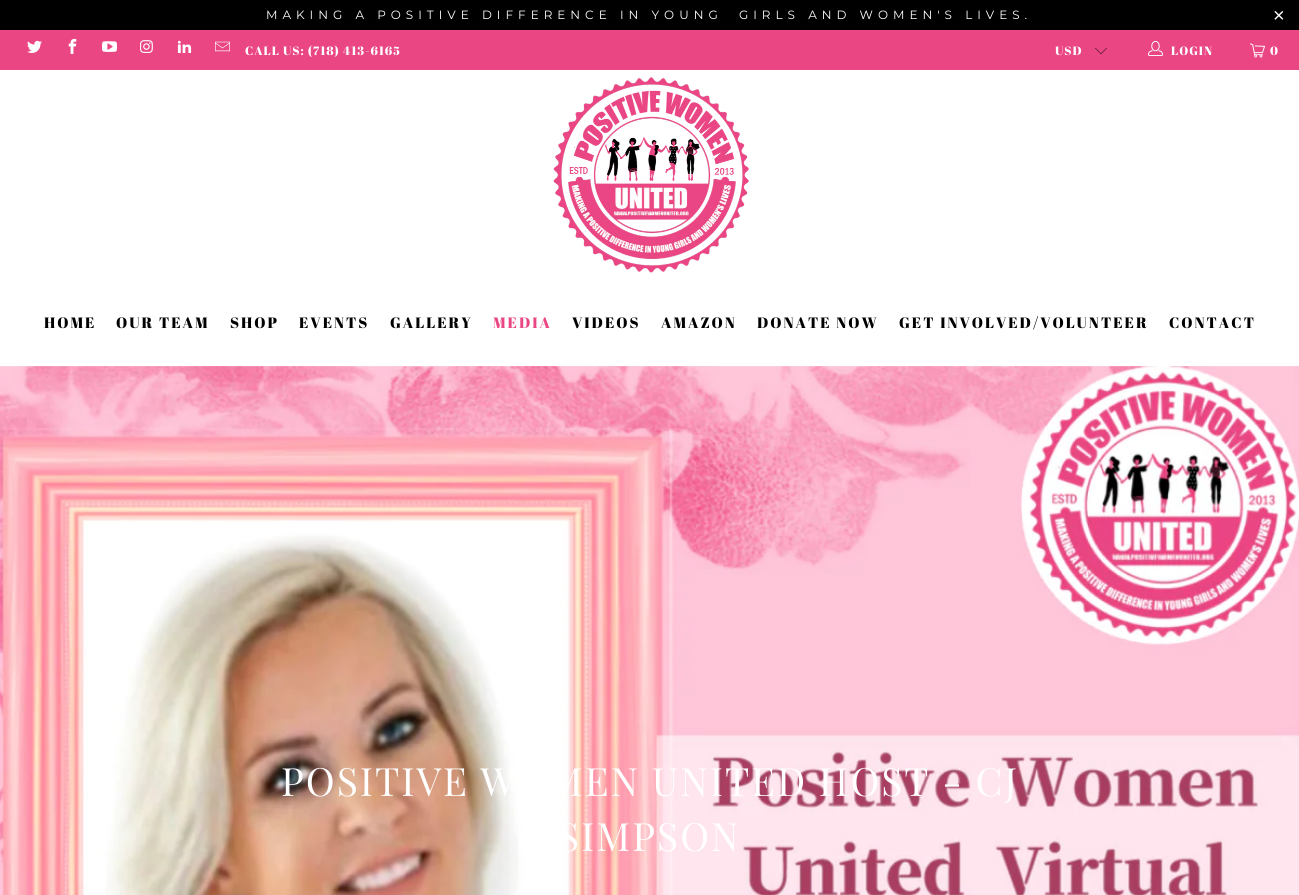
#include <cairo/cairo.h>
#include <math.h>
#include <stddef.h>

typedef struct { double x, y; const char *s; } line_t;
static cairo_t *cr;

static void rgb(unsigned color)
{
	cairo_set_source_rgb(cr, (color >> 16) / 255.0, (color >> 8 & 255) / 255.0, (color & 255) / 255.0);
}

static void tracked(double x, double y, const char *s, double letter, double word)
{
	cairo_move_to(cr, x, y);
	while (*s) {
		char ch[5] = {0};
		int n = 0;
		do ch[n++] = *s++; while ((*s & 0xC0) == 0x80);
		cairo_show_text(cr, ch);
		cairo_rel_move_to(cr, letter + word * (*ch == ' '), 0);
	}
}

static void image(const char *path, double x, double y, double w, double h)
{
	cairo_surface_t *image = cairo_image_surface_create_from_png(path);
	cairo_save(cr);
	cairo_set_source_surface(cr, image, x, y);
	cairo_rectangle(cr, x, y, w, h);
	cairo_fill(cr);
	cairo_restore(cr);
	cairo_surface_destroy(image);
}

int main(void) {
	cairo_surface_t *surface = cairo_image_surface_create(CAIRO_FORMAT_RGB24, 1299, 895);
	cr = cairo_create(surface);
	cairo_font_options_t *options = cairo_font_options_create();
	cairo_font_options_set_hint_metrics(options, CAIRO_HINT_METRICS_OFF);
	cairo_font_options_set_hint_style(options, CAIRO_HINT_STYLE_NONE);
	cairo_set_font_options(cr, options);
	cairo_set_miter_limit(cr, 4);
	rgb(0xffffff);
	cairo_paint(cr);
	rgb(0x000000);
	cairo_rectangle(cr, 0, 0, 1299, 30);
	cairo_fill(cr);
	rgb(0xea4683);
	cairo_rectangle(cr, 0, 30, 1299, 40);
	cairo_fill(cr);
	image("img/1.png", 27, 40, 15, 13);
	image("img/2.png", 68, 38, 9, 16);
	image("img/3.png", 102, 41, 15, 11);
	image("img/4.png", 140, 40, 13, 13);
	image("img/5.png", 177, 40, 15, 13);
	image("img/6.png", 215, 41, 15, 11);
	image("img/7.png", 1095, 47, 12, 8);
	image("img/8.png", 1148, 40, 15, 16);
	image("img/9.png", 1250, 43, 15, 15);
	image("img/10.png", 553, 77, 196, 196);
	image("img/11.png", 0, 366, 1299, 529);
	cairo_select_font_face(cr, "Montserrat", CAIRO_FONT_SLANT_NORMAL, CAIRO_FONT_WEIGHT_NORMAL);
	cairo_set_font_size(cr, 12);
	rgb(0xffffff);
	tracked(266, 19, "MAKING A POSITIVE DIFFERENCE IN YOUNG  GIRLS AND WOMEN'S LIVES.", 5, 0);
	cairo_select_font_face(cr, "Liberation Sans", CAIRO_FONT_SLANT_NORMAL, CAIRO_FONT_WEIGHT_NORMAL);
	cairo_set_font_size(cr, 20);
	tracked(1273, 22, "×", 5, 0);
	cairo_select_font_face(cr, "Abril Fatface", CAIRO_FONT_SLANT_NORMAL, CAIRO_FONT_WEIGHT_NORMAL);
	cairo_set_font_size(cr, 12);
	{
		static const line_t items[] = {
			{245, 55, "CALL US: (718) 413-6165"},
			{1055, 55, "USD"},
			{1171, 55, "LOGIN"},
			{1270, 55, "0"},
		};
		for (size_t i = 0; i < sizeof items / sizeof *items; i++) {
			tracked(items[i].x, items[i].y, items[i].s, 1, 0);
		}
	}
	cairo_set_font_size(cr, 15);
	rgb(0x000000);
	{
		static const line_t items[] = {
			{44, 328, "HOME"},
			{116, 328, "OUR TEAM"},
			{230, 328, "SHOP"},
			{299, 328, "EVENTS"},
			{390, 328, "GALLERY"},
		};
		for (size_t i = 0; i < sizeof items / sizeof *items; i++) {
			tracked(items[i].x, items[i].y, items[i].s, 2, 0);
		}
	}
	rgb(0xea4683);
	tracked(493, 328, "MEDIA", 2, 0);
	rgb(0x000000);
	{
		static const line_t items[] = {
			{572, 328, "VIDEOS"},
			{661, 328, "AMAZON"},
			{757, 328, "DONATE NOW"},
			{899, 328, "GET INVOLVED/VOLUNTEER"},
			{1169, 328, "CONTACT"},
		};
		for (size_t i = 0; i < sizeof items / sizeof *items; i++) {
			tracked(items[i].x, items[i].y, items[i].s, 2, 0);
		}
	}
	cairo_select_font_face(cr, "Playfair Display", CAIRO_FONT_SLANT_NORMAL, CAIRO_FONT_WEIGHT_NORMAL);
	cairo_set_font_size(cr, 39);
	rgb(0xffffff);
	tracked(281, 796, "POSITIVE WOMEN UNITED HOST - CJ", 2, 0);
	tracked(558, 851, "SIMPSON", 2, 0);
	cairo_surface_write_to_png(surface, "page.png");
	cairo_font_options_destroy(options);
	cairo_destroy(cr);
	cairo_surface_destroy(surface);
	return 0;
}
